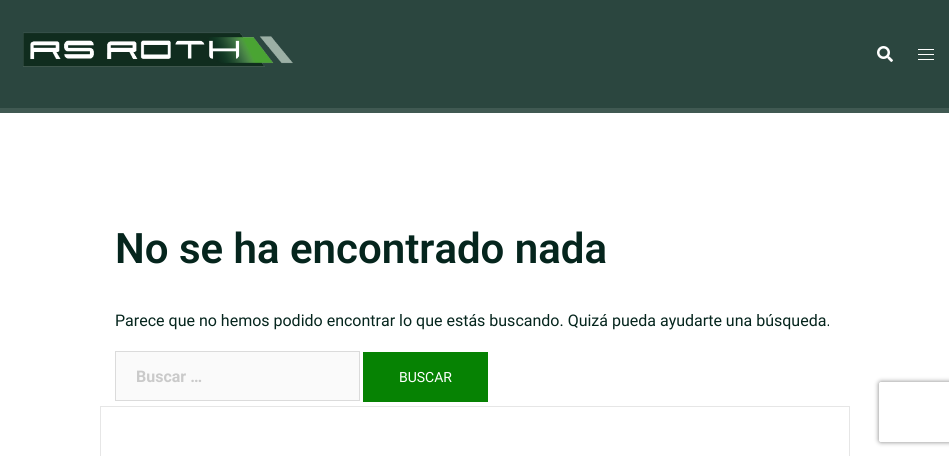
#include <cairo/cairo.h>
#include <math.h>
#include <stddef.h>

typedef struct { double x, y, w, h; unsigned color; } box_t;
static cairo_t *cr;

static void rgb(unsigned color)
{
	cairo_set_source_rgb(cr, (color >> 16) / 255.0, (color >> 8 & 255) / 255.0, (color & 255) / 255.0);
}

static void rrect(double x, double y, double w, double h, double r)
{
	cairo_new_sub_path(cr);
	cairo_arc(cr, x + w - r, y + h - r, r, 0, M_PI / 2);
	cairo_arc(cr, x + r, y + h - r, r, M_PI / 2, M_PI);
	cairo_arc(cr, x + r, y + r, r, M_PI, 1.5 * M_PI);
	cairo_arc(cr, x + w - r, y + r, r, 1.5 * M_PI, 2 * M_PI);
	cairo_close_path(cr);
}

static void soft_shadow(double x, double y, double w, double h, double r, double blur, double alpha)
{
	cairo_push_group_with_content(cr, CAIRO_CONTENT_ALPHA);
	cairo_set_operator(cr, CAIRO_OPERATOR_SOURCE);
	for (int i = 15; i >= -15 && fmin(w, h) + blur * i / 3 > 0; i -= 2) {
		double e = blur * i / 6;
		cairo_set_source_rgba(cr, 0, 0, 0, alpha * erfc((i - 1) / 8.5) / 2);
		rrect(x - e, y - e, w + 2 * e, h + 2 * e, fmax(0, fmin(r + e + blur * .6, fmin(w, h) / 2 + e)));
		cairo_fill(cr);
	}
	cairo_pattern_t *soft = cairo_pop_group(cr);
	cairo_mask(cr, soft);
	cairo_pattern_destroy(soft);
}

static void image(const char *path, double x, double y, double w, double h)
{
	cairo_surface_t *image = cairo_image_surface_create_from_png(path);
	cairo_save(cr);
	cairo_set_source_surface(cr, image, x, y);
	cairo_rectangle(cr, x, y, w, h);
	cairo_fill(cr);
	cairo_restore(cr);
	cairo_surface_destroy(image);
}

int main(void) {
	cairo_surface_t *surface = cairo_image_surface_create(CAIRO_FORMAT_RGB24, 949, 456);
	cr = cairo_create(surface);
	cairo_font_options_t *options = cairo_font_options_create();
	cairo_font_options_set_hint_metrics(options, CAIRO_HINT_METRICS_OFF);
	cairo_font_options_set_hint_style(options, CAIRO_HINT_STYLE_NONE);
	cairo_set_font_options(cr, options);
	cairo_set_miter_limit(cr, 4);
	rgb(0xffffff);
	cairo_paint(cr);
	rgb(0x2b463f);
	cairo_rectangle(cr, 0, 0, 949, 108);
	cairo_fill(cr);
	rgb(0x405952);
	cairo_rectangle(cr, 0, 108, 949, 5);
	cairo_fill(cr);
	image("img/1.png", 23, 32, 270, 35);
	image("img/2.png", 877, 46, 16, 16);
	{
		static const box_t items[] = {
			{918, 49, 16, 1, 0xffffff},
			{918, 54, 16, 1, 0xffffff},
			{918, 59, 16, 1, 0xffffff},
		};
		for (size_t i = 0; i < sizeof items / sizeof *items; i++) {
			rgb(items[i].color);
			cairo_rectangle(cr, items[i].x, items[i].y, items[i].w, items[i].h);
			cairo_fill(cr);
		}
	}
	rgb(0xfafafa);
	cairo_rectangle(cr, 115.5, 351.5, 244, 49);
	cairo_fill_preserve(cr);
	rgb(0xdbdbdb);
	cairo_set_line_width(cr, 1);
	cairo_stroke(cr);
	rgb(0x068203);
	cairo_rectangle(cr, 363, 352, 125, 50);
	cairo_fill(cr);
	cairo_rectangle(cr, 100.5, 406.5, 749, 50);
	rgb(0xe6e6e6);
	cairo_stroke(cr);
	cairo_save(cr);
	cairo_set_fill_rule(cr, CAIRO_FILL_RULE_EVEN_ODD);
	cairo_new_path(cr);
	cairo_move_to(cr, 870, 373);
	cairo_line_to(cr, 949, 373);
	cairo_line_to(cr, 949, 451);
	cairo_line_to(cr, 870, 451);
	cairo_close_path(cr);
	cairo_move_to(cr, 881, 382);
	cairo_line_to(cr, 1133, 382);
	cairo_curve_to(cr, 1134, 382, 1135, 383, 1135, 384);
	cairo_line_to(cr, 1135, 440);
	cairo_curve_to(cr, 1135, 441, 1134, 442, 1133, 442);
	cairo_line_to(cr, 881, 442);
	cairo_curve_to(cr, 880, 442, 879, 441, 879, 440);
	cairo_line_to(cr, 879, 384);
	cairo_curve_to(cr, 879, 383, 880, 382, 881, 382);
	cairo_close_path(cr);
	cairo_clip(cr);
	rgb(0x808080);
	soft_shadow(879, 382, 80, 60, 2, 2.5, 1);
	cairo_restore(cr);
	cairo_select_font_face(cr, "Roboto SemiBold", CAIRO_FONT_SLANT_NORMAL, CAIRO_FONT_WEIGHT_NORMAL);
	cairo_set_font_size(cr, 42);
	rgb(0x05251d);
	cairo_move_to(cr, 115, 263);
	cairo_show_text(cr, "No se ha encontrado nada");
	cairo_select_font_face(cr, "Roboto", CAIRO_FONT_SLANT_NORMAL, CAIRO_FONT_WEIGHT_NORMAL);
	cairo_set_font_size(cr, 16);
	cairo_move_to(cr, 115, 326);
	cairo_show_text(cr, "Parece que no hemos podido encontrar lo que estás buscando. Quizá pueda ayudarte una búsqueda.");
	cairo_select_font_face(cr, "Roboto", CAIRO_FONT_SLANT_NORMAL, CAIRO_FONT_WEIGHT_BOLD);
	rgb(0xcacaca);
	cairo_move_to(cr, 136, 382);
	cairo_show_text(cr, "Buscar …");
	cairo_select_font_face(cr, "Roboto", CAIRO_FONT_SLANT_NORMAL, CAIRO_FONT_WEIGHT_NORMAL);
	cairo_set_font_size(cr, 14);
	rgb(0xffffff);
	cairo_move_to(cr, 399, 382);
	cairo_show_text(cr, "BUSCAR");
	cairo_surface_write_to_png(surface, "page.png");
	cairo_font_options_destroy(options);
	cairo_destroy(cr);
	cairo_surface_destroy(surface);
	return 0;
}
